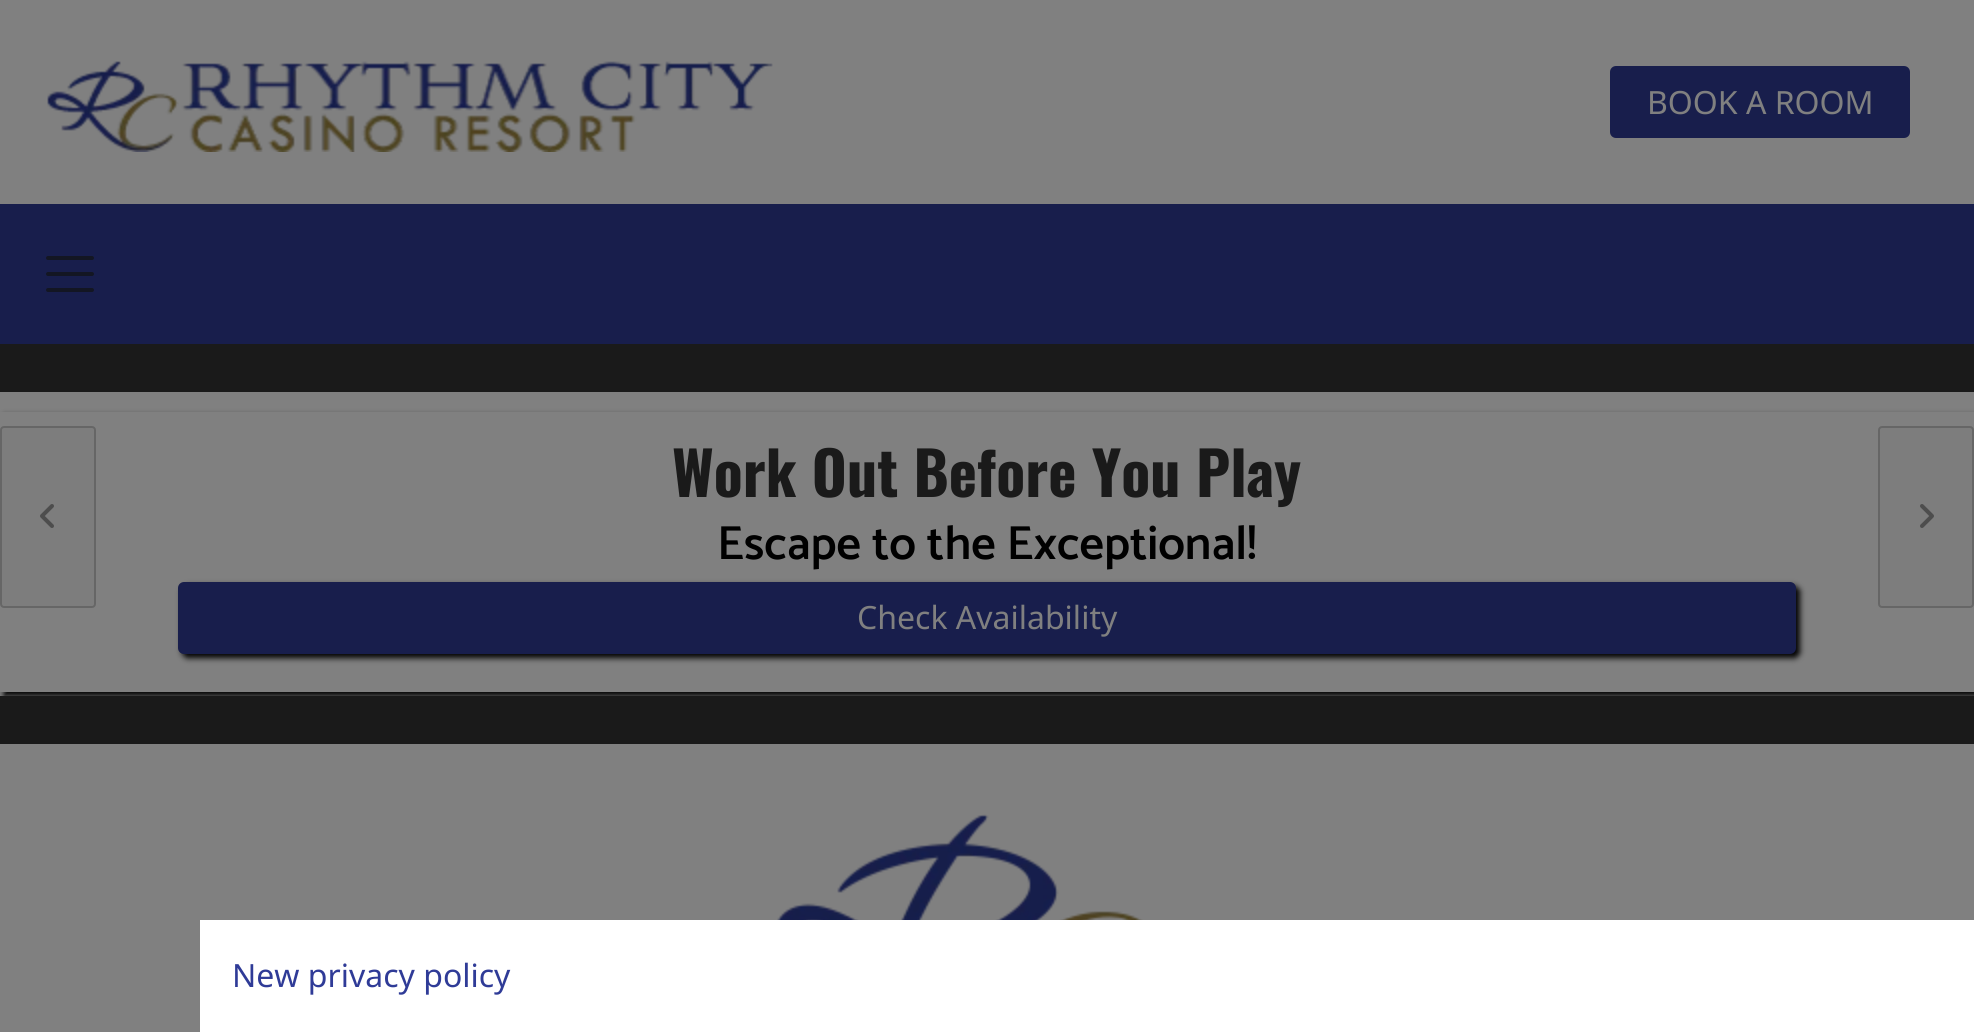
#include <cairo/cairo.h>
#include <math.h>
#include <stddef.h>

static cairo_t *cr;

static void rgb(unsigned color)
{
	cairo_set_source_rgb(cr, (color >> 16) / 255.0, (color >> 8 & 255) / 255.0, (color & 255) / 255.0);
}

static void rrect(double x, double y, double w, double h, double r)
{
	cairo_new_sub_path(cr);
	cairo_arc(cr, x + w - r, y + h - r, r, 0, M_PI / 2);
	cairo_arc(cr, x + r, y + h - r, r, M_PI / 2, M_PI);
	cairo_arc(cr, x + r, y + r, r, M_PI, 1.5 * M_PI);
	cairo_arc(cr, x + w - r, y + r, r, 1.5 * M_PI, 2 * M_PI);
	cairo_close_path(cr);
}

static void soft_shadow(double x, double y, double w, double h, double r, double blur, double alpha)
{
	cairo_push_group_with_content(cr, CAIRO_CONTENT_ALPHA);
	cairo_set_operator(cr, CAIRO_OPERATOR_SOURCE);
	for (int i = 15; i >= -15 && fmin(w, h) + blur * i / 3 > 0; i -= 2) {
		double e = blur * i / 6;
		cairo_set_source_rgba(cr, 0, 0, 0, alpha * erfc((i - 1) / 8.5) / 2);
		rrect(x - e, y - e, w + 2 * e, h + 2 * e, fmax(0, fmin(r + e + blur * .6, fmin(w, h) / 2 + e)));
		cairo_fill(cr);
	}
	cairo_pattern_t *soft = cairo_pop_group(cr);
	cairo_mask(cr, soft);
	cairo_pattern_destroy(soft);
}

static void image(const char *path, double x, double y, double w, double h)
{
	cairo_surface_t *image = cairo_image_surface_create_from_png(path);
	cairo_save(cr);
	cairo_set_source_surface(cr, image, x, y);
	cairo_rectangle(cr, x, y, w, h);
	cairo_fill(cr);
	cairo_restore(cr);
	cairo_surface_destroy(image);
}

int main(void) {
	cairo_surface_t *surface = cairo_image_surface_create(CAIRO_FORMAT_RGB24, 1974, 1032);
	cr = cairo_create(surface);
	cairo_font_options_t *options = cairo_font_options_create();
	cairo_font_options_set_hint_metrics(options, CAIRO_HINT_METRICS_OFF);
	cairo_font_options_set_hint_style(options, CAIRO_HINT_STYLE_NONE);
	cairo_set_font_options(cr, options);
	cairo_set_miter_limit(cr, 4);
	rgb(0x808080);
	cairo_paint(cr);
	image("img/1.png", 47, 61, 726, 91);
	rgb(0x181e4c);
	rrect(1610, 66, 300, 72, 6);
	cairo_fill(cr);
	cairo_rectangle(cr, 0, 204, 1974, 140);
	cairo_fill(cr);
	cairo_new_path(cr);
	cairo_move_to(cr, 48, 258);
	cairo_line_to(cr, 92, 258);
	cairo_move_to(cr, 48, 274);
	cairo_line_to(cr, 92, 274);
	cairo_move_to(cr, 48, 290);
	cairo_line_to(cr, 92, 290);
	rgb(0x131623);
	cairo_set_line_width(cr, 4);
	cairo_set_line_cap(cr, CAIRO_LINE_CAP_ROUND);
	cairo_stroke(cr);
	rgb(0x1a1a1a);
	cairo_rectangle(cr, 0, 344, 1974, 48);
	cairo_fill(cr);
	cairo_save(cr);
	cairo_set_fill_rule(cr, CAIRO_FILL_RULE_EVEN_ODD);
	cairo_new_path(cr);
	cairo_move_to(cr, 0, 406);
	cairo_line_to(cr, 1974, 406);
	cairo_line_to(cr, 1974, 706);
	cairo_line_to(cr, 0, 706);
	cairo_close_path(cr);
	cairo_move_to(cr, 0, 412);
	cairo_line_to(cr, 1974, 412);
	cairo_line_to(cr, 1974, 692);
	cairo_line_to(cr, 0, 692);
	cairo_close_path(cr);
	cairo_clip(cr);
	rgb(0x000000);
	soft_shadow(4, 416, 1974, 280, 0, 3, 1);
	cairo_restore(cr);
	rgb(0x7d7d7d);
	rrect(1, 427, 94, 180, 3);
	cairo_fill_preserve(cr);
	rgb(0x666666);
	cairo_set_line_width(cr, 2);
	cairo_set_line_cap(cr, CAIRO_LINE_CAP_BUTT);
	cairo_stroke(cr);
	image("img/2.png", 40, 504, 14, 24);
	rgb(0x000000);
	soft_shadow(182, 586, 1618, 72, 6, 3, 1);
	rgb(0x181e4c);
	rrect(178, 582, 1618, 72, 6);
	cairo_fill(cr);
	rgb(0x7d7d7d);
	rrect(1879, 427, 94, 180, 3);
	cairo_fill_preserve(cr);
	rgb(0x666666);
	cairo_stroke(cr);
	image("img/3.png", 1920, 504, 14, 24);
	rgb(0x1a1a1a);
	cairo_rectangle(cr, 0, 696, 1974, 48);
	cairo_fill(cr);
	image("img/4.png", 777, 814, 366, 106);
	rgb(0xffffff);
	cairo_rectangle(cr, 200, 920, 1774, 112);
	cairo_fill(cr);
	cairo_select_font_face(cr, "Noto Sans", CAIRO_FONT_SLANT_NORMAL, CAIRO_FONT_WEIGHT_NORMAL);
	cairo_set_font_size(cr, 32);
	rgb(0x808080);
	cairo_move_to(cr, 1647, 114);
	cairo_show_text(cr, "BOOK A ROOM");
	cairo_select_font_face(cr, "Oswald", CAIRO_FONT_SLANT_NORMAL, CAIRO_FONT_WEIGHT_BOLD);
	cairo_set_font_size(cr, 60);
	rgb(0x1a1a1a);
	cairo_move_to(cr, 672, 497);
	cairo_show_text(cr, "Work Out Before You Play");
	cairo_select_font_face(cr, "Catamaran SemiBold", CAIRO_FONT_SLANT_NORMAL, CAIRO_FONT_WEIGHT_NORMAL);
	cairo_set_font_size(cr, 48);
	rgb(0x000000);
	cairo_move_to(cr, 717, 559);
	cairo_show_text(cr, "Escape to the Exceptional!");
	cairo_select_font_face(cr, "Noto Sans", CAIRO_FONT_SLANT_NORMAL, CAIRO_FONT_WEIGHT_NORMAL);
	cairo_set_font_size(cr, 32);
	rgb(0x808080);
	cairo_move_to(cr, 857, 629);
	cairo_show_text(cr, "Check Availability");
	rgb(0x2f3b97);
	cairo_move_to(cr, 232, 987);
	cairo_show_text(cr, "New privacy policy");
	cairo_surface_write_to_png(surface, "page.png");
	cairo_font_options_destroy(options);
	cairo_destroy(cr);
	cairo_surface_destroy(surface);
	return 0;
}
